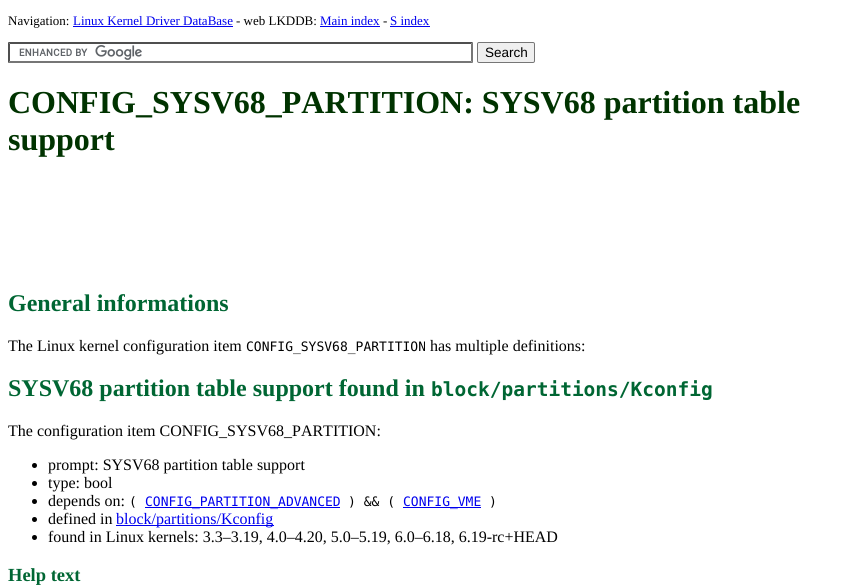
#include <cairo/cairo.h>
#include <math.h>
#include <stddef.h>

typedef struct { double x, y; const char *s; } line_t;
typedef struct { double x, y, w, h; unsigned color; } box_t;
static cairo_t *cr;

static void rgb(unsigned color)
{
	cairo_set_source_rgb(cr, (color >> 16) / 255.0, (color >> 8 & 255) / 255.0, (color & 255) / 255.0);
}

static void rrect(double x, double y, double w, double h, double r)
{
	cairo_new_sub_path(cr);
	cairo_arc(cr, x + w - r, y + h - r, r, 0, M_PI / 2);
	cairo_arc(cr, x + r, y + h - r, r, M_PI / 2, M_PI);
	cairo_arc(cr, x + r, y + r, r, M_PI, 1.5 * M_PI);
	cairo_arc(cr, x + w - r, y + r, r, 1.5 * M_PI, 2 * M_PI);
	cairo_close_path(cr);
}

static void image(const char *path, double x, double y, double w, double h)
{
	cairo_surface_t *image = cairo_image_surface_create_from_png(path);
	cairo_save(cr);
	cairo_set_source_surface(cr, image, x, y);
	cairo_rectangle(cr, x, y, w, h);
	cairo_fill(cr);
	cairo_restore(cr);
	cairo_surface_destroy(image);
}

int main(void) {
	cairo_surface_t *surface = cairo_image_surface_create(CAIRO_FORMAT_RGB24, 854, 587);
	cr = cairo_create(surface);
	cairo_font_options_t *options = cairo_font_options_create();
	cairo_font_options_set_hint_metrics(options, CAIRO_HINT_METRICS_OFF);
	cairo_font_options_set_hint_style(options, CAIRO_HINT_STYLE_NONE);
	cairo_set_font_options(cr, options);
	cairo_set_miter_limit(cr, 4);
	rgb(0xffffff);
	cairo_paint(cr);
	{
		static const box_t items[] = {
			{73, 26, 160, 1, 0x0000ee},
			{320, 26, 60, 1, 0x0000ee},
			{390, 26, 40, 1, 0x0000ee},
		};
		for (size_t i = 0; i < sizeof items / sizeof *items; i++) {
			rgb(items[i].color);
			cairo_rectangle(cr, items[i].x, items[i].y, items[i].w, items[i].h);
			cairo_fill(cr);
		}
	}
	image("img/1.png", 19, 45, 123, 15);
	rgb(0x4f4f4f);
	cairo_new_path(cr);
	cairo_move_to(cr, 8, 42);
	cairo_line_to(cr, 473, 42);
	cairo_line_to(cr, 471, 44);
	cairo_line_to(cr, 10, 44);
	cairo_close_path(cr);
	cairo_fill(cr);
	rgb(0x767676);
	cairo_new_path(cr);
	cairo_move_to(cr, 473, 42);
	cairo_line_to(cr, 473, 63);
	cairo_line_to(cr, 471, 61);
	cairo_line_to(cr, 471, 44);
	cairo_close_path(cr);
	cairo_fill(cr);
	cairo_new_path(cr);
	cairo_move_to(cr, 473, 63);
	cairo_line_to(cr, 8, 63);
	cairo_line_to(cr, 10, 61);
	cairo_line_to(cr, 471, 61);
	cairo_close_path(cr);
	cairo_fill(cr);
	rgb(0x4f4f4f);
	cairo_new_path(cr);
	cairo_move_to(cr, 8, 63);
	cairo_line_to(cr, 8, 42);
	cairo_line_to(cr, 10, 44);
	cairo_line_to(cr, 10, 61);
	cairo_close_path(cr);
	cairo_fill(cr);
	rgb(0xefefef);
	rrect(477.5, 42.5, 57, 20, 1.5);
	cairo_fill_preserve(cr);
	rgb(0x767676);
	cairo_set_line_width(cr, 1);
	cairo_stroke(cr);
	rgb(0x000000);
	cairo_arc(cr, 34.5, 465.5, 2.5, 0, 2 * M_PI);
	cairo_fill(cr);
	cairo_arc(cr, 34.5, 483.5, 2.5, 0, 2 * M_PI);
	cairo_fill(cr);
	cairo_arc(cr, 34.5, 501.5, 2.5, 0, 2 * M_PI);
	cairo_fill(cr);
	rgb(0x0000ee);
	cairo_rectangle(cr, 145, 507, 195, 1);
	cairo_fill(cr);
	cairo_rectangle(cr, 403, 507, 78, 1);
	cairo_fill(cr);
	rgb(0x000000);
	cairo_arc(cr, 34.5, 519.5, 2.5, 0, 2 * M_PI);
	cairo_fill(cr);
	rgb(0x0000ee);
	cairo_rectangle(cr, 116, 525, 158, 1);
	cairo_fill(cr);
	rgb(0x000000);
	cairo_arc(cr, 34.5, 537.5, 2.5, 0, 2 * M_PI);
	cairo_fill(cr);
	cairo_select_font_face(cr, "Liberation Serif", CAIRO_FONT_SLANT_NORMAL, CAIRO_FONT_WEIGHT_NORMAL);
	cairo_set_font_size(cr, 13);
	cairo_move_to(cr, 8, 25);
	cairo_show_text(cr, "Navigation:");
	rgb(0x0000ee);
	cairo_move_to(cr, 73, 25);
	cairo_show_text(cr, "Linux Kernel Driver DataBase");
	rgb(0x000000);
	cairo_move_to(cr, 236, 25);
	cairo_show_text(cr, "- web LKDDB:");
	rgb(0x0000ee);
	cairo_move_to(cr, 320, 25);
	cairo_show_text(cr, "Main index");
	rgb(0x000000);
	cairo_move_to(cr, 383, 25);
	cairo_show_text(cr, "-");
	rgb(0x0000ee);
	cairo_move_to(cr, 390, 25);
	cairo_show_text(cr, "S index");
	cairo_select_font_face(cr, "Liberation Sans", CAIRO_FONT_SLANT_NORMAL, CAIRO_FONT_WEIGHT_NORMAL);
	cairo_set_font_size(cr, 13.5);
	rgb(0x000000);
	cairo_move_to(cr, 485, 57);
	cairo_show_text(cr, "Search");
	cairo_select_font_face(cr, "Liberation Serif", CAIRO_FONT_SLANT_NORMAL, CAIRO_FONT_WEIGHT_BOLD);
	cairo_set_font_size(cr, 32);
	rgb(0x003300);
	cairo_move_to(cr, 8, 113);
	cairo_show_text(cr, "CONFIG_SYSV68_PARTITION: SYSV68 partition table");
	cairo_move_to(cr, 8, 150);
	cairo_show_text(cr, "support");
	cairo_set_font_size(cr, 24);
	rgb(0x006633);
	cairo_move_to(cr, 8, 311);
	cairo_show_text(cr, "General informations");
	cairo_select_font_face(cr, "Liberation Serif", CAIRO_FONT_SLANT_NORMAL, CAIRO_FONT_WEIGHT_NORMAL);
	cairo_set_font_size(cr, 16);
	rgb(0x000000);
	cairo_move_to(cr, 8, 351);
	cairo_show_text(cr, "The Linux kernel configuration item");
	cairo_select_font_face(cr, "DejaVu Sans Mono", CAIRO_FONT_SLANT_NORMAL, CAIRO_FONT_WEIGHT_NORMAL);
	cairo_set_font_size(cr, 13);
	cairo_move_to(cr, 246, 351);
	cairo_show_text(cr, "CONFIG_SYSV68_PARTITION");
	cairo_select_font_face(cr, "Liberation Serif", CAIRO_FONT_SLANT_NORMAL, CAIRO_FONT_WEIGHT_NORMAL);
	cairo_set_font_size(cr, 16);
	cairo_move_to(cr, 430, 351);
	cairo_show_text(cr, "has multiple definitions:");
	cairo_select_font_face(cr, "Liberation Serif", CAIRO_FONT_SLANT_NORMAL, CAIRO_FONT_WEIGHT_BOLD);
	cairo_set_font_size(cr, 24);
	rgb(0x006633);
	cairo_move_to(cr, 8, 396);
	cairo_show_text(cr, "SYSV68 partition table support found in");
	cairo_select_font_face(cr, "DejaVu Sans Mono", CAIRO_FONT_SLANT_NORMAL, CAIRO_FONT_WEIGHT_BOLD);
	cairo_set_font_size(cr, 19.5);
	cairo_move_to(cr, 431, 396);
	cairo_show_text(cr, "block/partitions/Kconfig");
	cairo_select_font_face(cr, "Liberation Serif", CAIRO_FONT_SLANT_NORMAL, CAIRO_FONT_WEIGHT_NORMAL);
	cairo_set_font_size(cr, 16);
	rgb(0x000000);
	{
		static const line_t items[] = {
			{8, 436, "The configuration item CONFIG_SYSV68_PARTITION:"},
			{48, 470, "prompt: SYSV68 partition table support"},
			{48, 488, "type: bool"},
			{48, 506, "depends on:"},
		};
		for (size_t i = 0; i < sizeof items / sizeof *items; i++) {
			cairo_move_to(cr, items[i].x, items[i].y);
			cairo_show_text(cr, items[i].s);
		}
	}
	cairo_select_font_face(cr, "DejaVu Sans Mono", CAIRO_FONT_SLANT_NORMAL, CAIRO_FONT_WEIGHT_NORMAL);
	cairo_set_font_size(cr, 13);
	cairo_move_to(cr, 129, 506);
	cairo_show_text(cr, "(");
	rgb(0x0000ee);
	cairo_move_to(cr, 145, 506);
	cairo_show_text(cr, "CONFIG_PARTITION_ADVANCED");
	rgb(0x000000);
	cairo_move_to(cr, 348, 506);
	cairo_show_text(cr, ") && (");
	rgb(0x0000ee);
	cairo_move_to(cr, 403, 506);
	cairo_show_text(cr, "CONFIG_VME");
	rgb(0x000000);
	cairo_move_to(cr, 489, 506);
	cairo_show_text(cr, ")");
	cairo_select_font_face(cr, "Liberation Serif", CAIRO_FONT_SLANT_NORMAL, CAIRO_FONT_WEIGHT_NORMAL);
	cairo_set_font_size(cr, 16);
	cairo_move_to(cr, 48, 524);
	cairo_show_text(cr, "defined in");
	rgb(0x0000ee);
	cairo_move_to(cr, 116, 524);
	cairo_show_text(cr, "block/partitions/Kconfig");
	rgb(0x000000);
	cairo_move_to(cr, 48, 542);
	cairo_show_text(cr, "found in Linux kernels: 3.3–3.19, 4.0–4.20, 5.0–5.19, 6.0–6.18, 6.19-rc+HEAD");
	cairo_select_font_face(cr, "Liberation Serif", CAIRO_FONT_SLANT_NORMAL, CAIRO_FONT_WEIGHT_BOLD);
	cairo_set_font_size(cr, 18.5);
	rgb(0x006633);
	cairo_move_to(cr, 8, 581);
	cairo_show_text(cr, "Help text");
	cairo_surface_write_to_png(surface, "page.png");
	cairo_font_options_destroy(options);
	cairo_destroy(cr);
	cairo_surface_destroy(surface);
	return 0;
}
